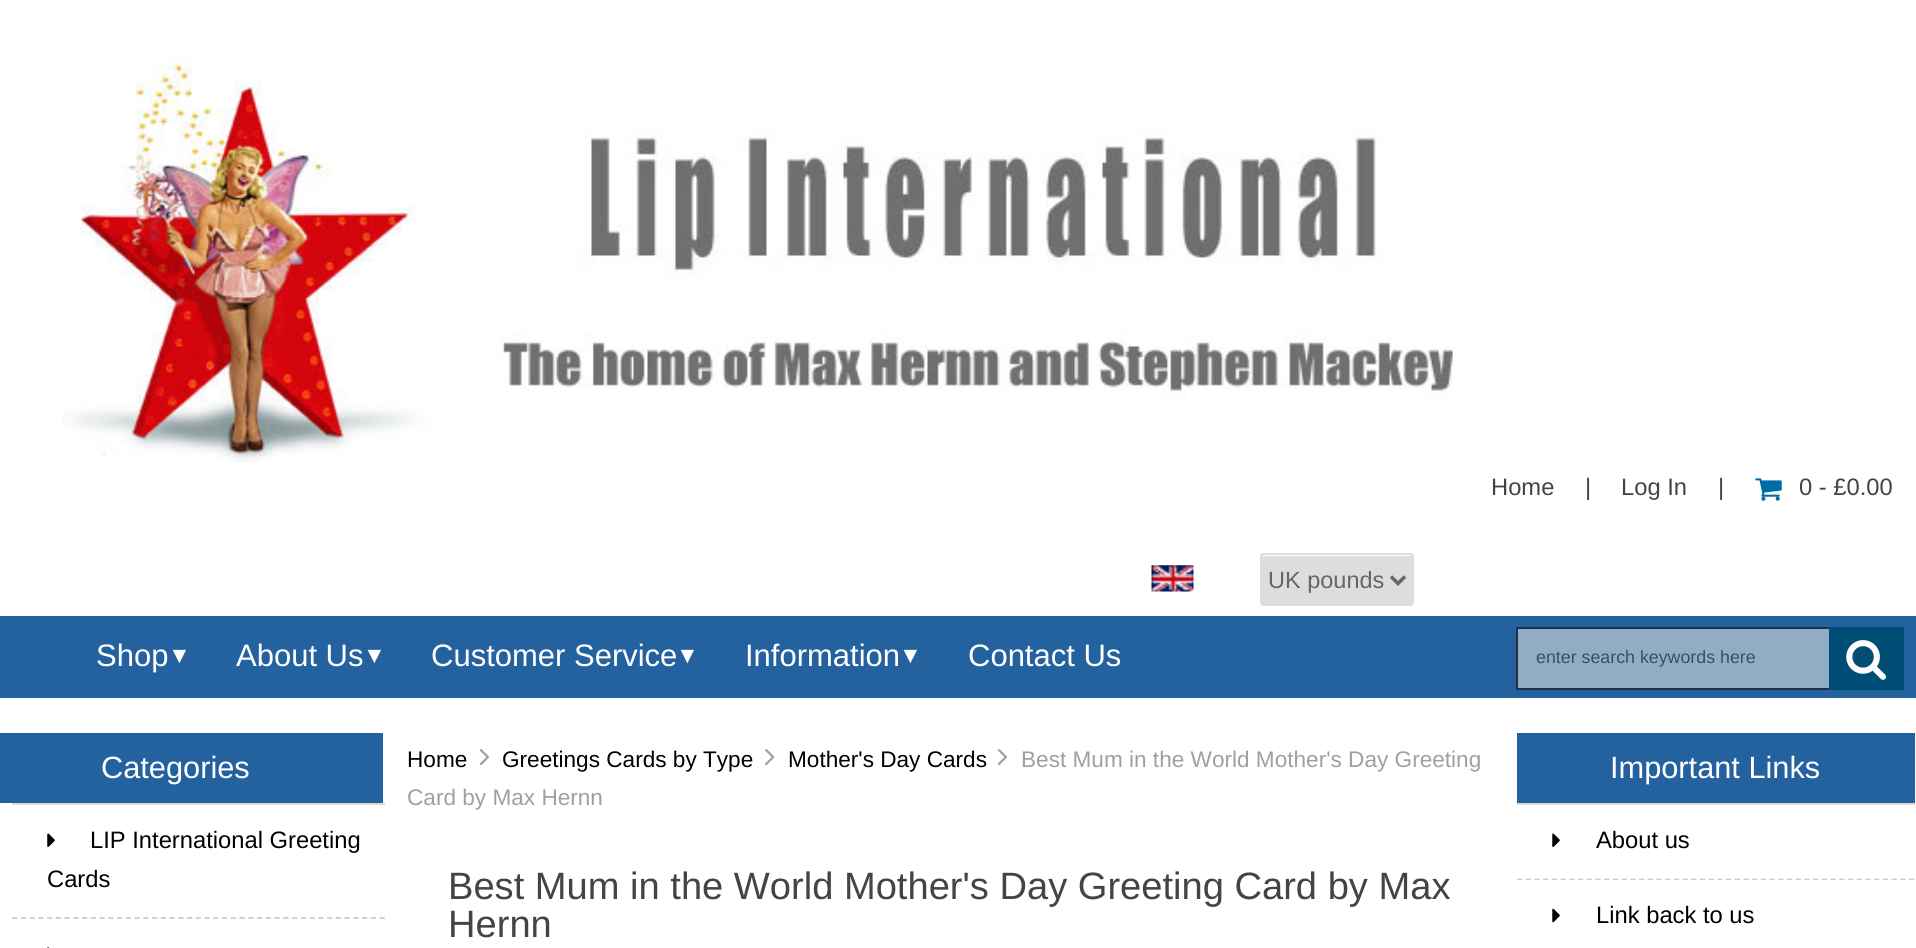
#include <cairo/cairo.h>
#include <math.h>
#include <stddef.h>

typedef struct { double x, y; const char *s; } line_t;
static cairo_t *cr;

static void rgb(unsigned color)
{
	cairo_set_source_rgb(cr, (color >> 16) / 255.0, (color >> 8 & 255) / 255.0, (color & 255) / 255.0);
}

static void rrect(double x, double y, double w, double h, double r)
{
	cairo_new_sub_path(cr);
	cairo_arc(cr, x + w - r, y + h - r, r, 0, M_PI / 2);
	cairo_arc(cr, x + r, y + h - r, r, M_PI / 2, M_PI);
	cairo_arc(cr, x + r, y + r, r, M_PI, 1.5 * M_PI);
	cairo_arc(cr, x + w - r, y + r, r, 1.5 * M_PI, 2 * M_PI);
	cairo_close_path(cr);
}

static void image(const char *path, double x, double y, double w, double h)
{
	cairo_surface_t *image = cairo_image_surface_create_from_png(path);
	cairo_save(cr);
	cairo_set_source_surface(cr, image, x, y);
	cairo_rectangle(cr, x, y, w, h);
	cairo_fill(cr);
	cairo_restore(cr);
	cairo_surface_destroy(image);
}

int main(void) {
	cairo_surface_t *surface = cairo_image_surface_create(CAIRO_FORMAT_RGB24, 1916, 948);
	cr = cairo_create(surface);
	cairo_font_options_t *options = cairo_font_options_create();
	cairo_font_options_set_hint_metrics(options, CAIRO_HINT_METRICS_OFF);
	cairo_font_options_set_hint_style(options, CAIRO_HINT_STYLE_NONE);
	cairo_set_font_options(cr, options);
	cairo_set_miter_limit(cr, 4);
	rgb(0xffffff);
	cairo_paint(cr);
	image("img/1.png", 62, 52, 1391, 410);
	image("img/2.png", 1755, 478, 27, 23);
	image("img/3.png", 1151, 565, 43, 27);
	rgb(0xddddde);
	rrect(1260, 553, 154, 53, 4);
	cairo_fill(cr);
	rgb(0xffffff);
	cairo_new_path(cr);
	cairo_move_to(cr, 1264, 556);
	cairo_line_to(cr, 1410, 556);
	cairo_curve_to(cr, 1411, 556, 1412, 557, 1412, 558);
	cairo_curve_to(cr, 1412, 557, 1412, 556, 1411, 555);
	cairo_line_to(cr, 1288, 555);
	cairo_curve_to(cr, 1285, 555, 1262, 549, 1262, 558);
	cairo_curve_to(cr, 1262, 557, 1263, 556, 1264, 556);
	cairo_close_path(cr);
	cairo_fill(cr);
	rrect(1261, 554, 152, 51, 3);
	rgb(0xdddddd);
	cairo_stroke(cr);
	cairo_new_path(cr);
	cairo_move_to(cr, 1391, 576.5);
	cairo_line_to(cr, 1398, 583.5);
	cairo_line_to(cr, 1405, 576.5);
	rgb(0x666666);
	cairo_set_line_width(cr, 3.5);
	cairo_stroke(cr);
	rgb(0x24629f);
	cairo_rectangle(cr, 0, 616, 1916, 82);
	cairo_fill(cr);
	rgb(0x93acc5);
	cairo_rectangle(cr, 1518, 629, 311, 59);
	cairo_fill(cr);
	cairo_rectangle(cr, 1517, 628, 320, 61);
	rgb(0x233049);
	cairo_set_line_width(cr, 2);
	cairo_stroke(cr);
	rgb(0x004d76);
	cairo_rectangle(cr, 1829, 627, 75, 63);
	cairo_fill(cr);
	image("img/4.png", 1846, 640, 40, 40);
	rgb(0x24629f);
	cairo_rectangle(cr, 0, 733, 383, 70);
	cairo_fill(cr);
	rgb(0xdbdbce);
	cairo_rectangle(cr, 12, 803, 373, 2);
	cairo_fill(cr);
	cairo_new_path(cr);
	cairo_move_to(cr, 12, 918);
	cairo_line_to(cr, 385, 918);
	rgb(0xcccccc);
	cairo_set_line_width(cr, 1.8);
	cairo_set_dash(cr, (double[]){5.25, 3.5}, 2, 0);
	cairo_stroke(cr);
	image("img/5.png", 47, 833, 8, 14);
	image("img/6.png", 47, 947, 3, 1);
	image("img/7.png", 479, 749, 11, 17);
	image("img/8.png", 765, 749, 10, 17);
	image("img/7.png", 997, 749, 11, 17);
	rgb(0x24629f);
	cairo_rectangle(cr, 1517, 733, 398, 70);
	cairo_fill(cr);
	rgb(0xdbdbce);
	cairo_rectangle(cr, 1517, 803, 398, 2);
	cairo_fill(cr);
	cairo_new_path(cr);
	cairo_move_to(cr, 1517, 879.5);
	cairo_line_to(cr, 1914.5, 879.5);
	rgb(0xcccccc);
	cairo_set_dash(cr, (double[]){5.25, 3.46}, 2, 0);
	cairo_stroke(cr);
	image("img/5.png", 1552, 833, 8, 14);
	rgb(0xfffffe);
	cairo_rectangle(cr, 1517, 880, 398, 1);
	cairo_fill(cr);
	image("img/9.png", 1552, 908, 8, 15);
	cairo_select_font_face(cr, "Liberation Sans", CAIRO_FONT_SLANT_NORMAL, CAIRO_FONT_WEIGHT_NORMAL);
	cairo_set_font_size(cr, 31);
	rgb(0xffffff);
	cairo_move_to(cr, 96, 666);
	cairo_show_text(cr, "Shop");
	cairo_select_font_face(cr, "Liberation Sans", CAIRO_FONT_SLANT_ITALIC, CAIRO_FONT_WEIGHT_NORMAL);
	cairo_set_font_size(cr, 23);
	cairo_move_to(cr, 168, 663);
	cairo_show_text(cr, "▼");
	cairo_select_font_face(cr, "Liberation Sans", CAIRO_FONT_SLANT_NORMAL, CAIRO_FONT_WEIGHT_NORMAL);
	cairo_set_font_size(cr, 31);
	cairo_move_to(cr, 236, 666);
	cairo_show_text(cr, "About Us");
	cairo_select_font_face(cr, "Liberation Sans", CAIRO_FONT_SLANT_ITALIC, CAIRO_FONT_WEIGHT_NORMAL);
	cairo_set_font_size(cr, 23);
	cairo_move_to(cr, 363, 663);
	cairo_show_text(cr, "▼");
	cairo_select_font_face(cr, "Liberation Sans", CAIRO_FONT_SLANT_NORMAL, CAIRO_FONT_WEIGHT_NORMAL);
	cairo_set_font_size(cr, 31);
	cairo_move_to(cr, 431, 666);
	cairo_show_text(cr, "Customer Service");
	cairo_select_font_face(cr, "Liberation Sans", CAIRO_FONT_SLANT_ITALIC, CAIRO_FONT_WEIGHT_NORMAL);
	cairo_set_font_size(cr, 23);
	cairo_move_to(cr, 676, 663);
	cairo_show_text(cr, "▼");
	cairo_select_font_face(cr, "Liberation Sans", CAIRO_FONT_SLANT_NORMAL, CAIRO_FONT_WEIGHT_NORMAL);
	cairo_set_font_size(cr, 31);
	cairo_move_to(cr, 745, 666);
	cairo_show_text(cr, "Information");
	cairo_select_font_face(cr, "Liberation Sans", CAIRO_FONT_SLANT_ITALIC, CAIRO_FONT_WEIGHT_NORMAL);
	cairo_set_font_size(cr, 23);
	cairo_move_to(cr, 899, 663);
	cairo_show_text(cr, "▼");
	cairo_select_font_face(cr, "Liberation Sans", CAIRO_FONT_SLANT_NORMAL, CAIRO_FONT_WEIGHT_NORMAL);
	cairo_set_font_size(cr, 31);
	cairo_move_to(cr, 968, 666);
	cairo_show_text(cr, "Contact Us");
	cairo_set_font_size(cr, 23.75);
	rgb(0x444444);
	{
		static const line_t items[] = {
			{1491, 495, "Home"},
			{1585, 495, "|"},
			{1621, 495, "Log In"},
			{1718, 495, "|"},
			{1799, 495, "0 - £0.00"},
		};
		for (size_t i = 0; i < sizeof items / sizeof *items; i++) {
			cairo_move_to(cr, items[i].x, items[i].y);
			cairo_show_text(cr, items[i].s);
		}
	}
	cairo_set_font_size(cr, 23.5);
	rgb(0x666666);
	cairo_move_to(cr, 1268, 588);
	cairo_show_text(cr, "UK pounds");
	cairo_set_font_size(cr, 17.8);
	rgb(0x375068);
	cairo_move_to(cr, 1536, 663);
	cairo_show_text(cr, "enter search keywords here");
	cairo_set_font_size(cr, 30.75);
	rgb(0xffffff);
	cairo_move_to(cr, 101, 778);
	cairo_show_text(cr, "Categories");
	cairo_set_font_size(cr, 23.75);
	rgb(0x000000);
	cairo_move_to(cr, 90, 848);
	cairo_show_text(cr, "LIP International Greeting");
	cairo_move_to(cr, 47, 887);
	cairo_show_text(cr, "Cards");
	cairo_set_font_size(cr, 22.6);
	{
		static const line_t items[] = {
			{407, 767, "Home"},
			{502, 767, "Greetings Cards by Type"},
			{788, 767, "Mother's Day Cards"},
		};
		for (size_t i = 0; i < sizeof items / sizeof *items; i++) {
			cairo_move_to(cr, items[i].x, items[i].y);
			cairo_show_text(cr, items[i].s);
		}
	}
	rgb(0xa0a0a0);
	cairo_move_to(cr, 1021, 767);
	cairo_show_text(cr, "Best Mum in the World Mother's Day Greeting");
	cairo_move_to(cr, 407, 805);
	cairo_show_text(cr, "Card by Max Hernn");
	cairo_set_font_size(cr, 38.1);
	rgb(0x444444);
	cairo_move_to(cr, 448, 899);
	cairo_show_text(cr, "Best Mum in the World Mother's Day Greeting Card by Max");
	cairo_move_to(cr, 448, 937);
	cairo_show_text(cr, "Hernn");
	cairo_set_font_size(cr, 30.75);
	rgb(0xffffff);
	cairo_move_to(cr, 1610, 778);
	cairo_show_text(cr, "Important Links");
	cairo_set_font_size(cr, 23.75);
	rgb(0x000000);
	cairo_move_to(cr, 1596, 848);
	cairo_show_text(cr, "About us");
	cairo_move_to(cr, 1596, 923);
	cairo_show_text(cr, "Link back to us");
	cairo_surface_write_to_png(surface, "page.png");
	cairo_font_options_destroy(options);
	cairo_destroy(cr);
	cairo_surface_destroy(surface);
	return 0;
}
